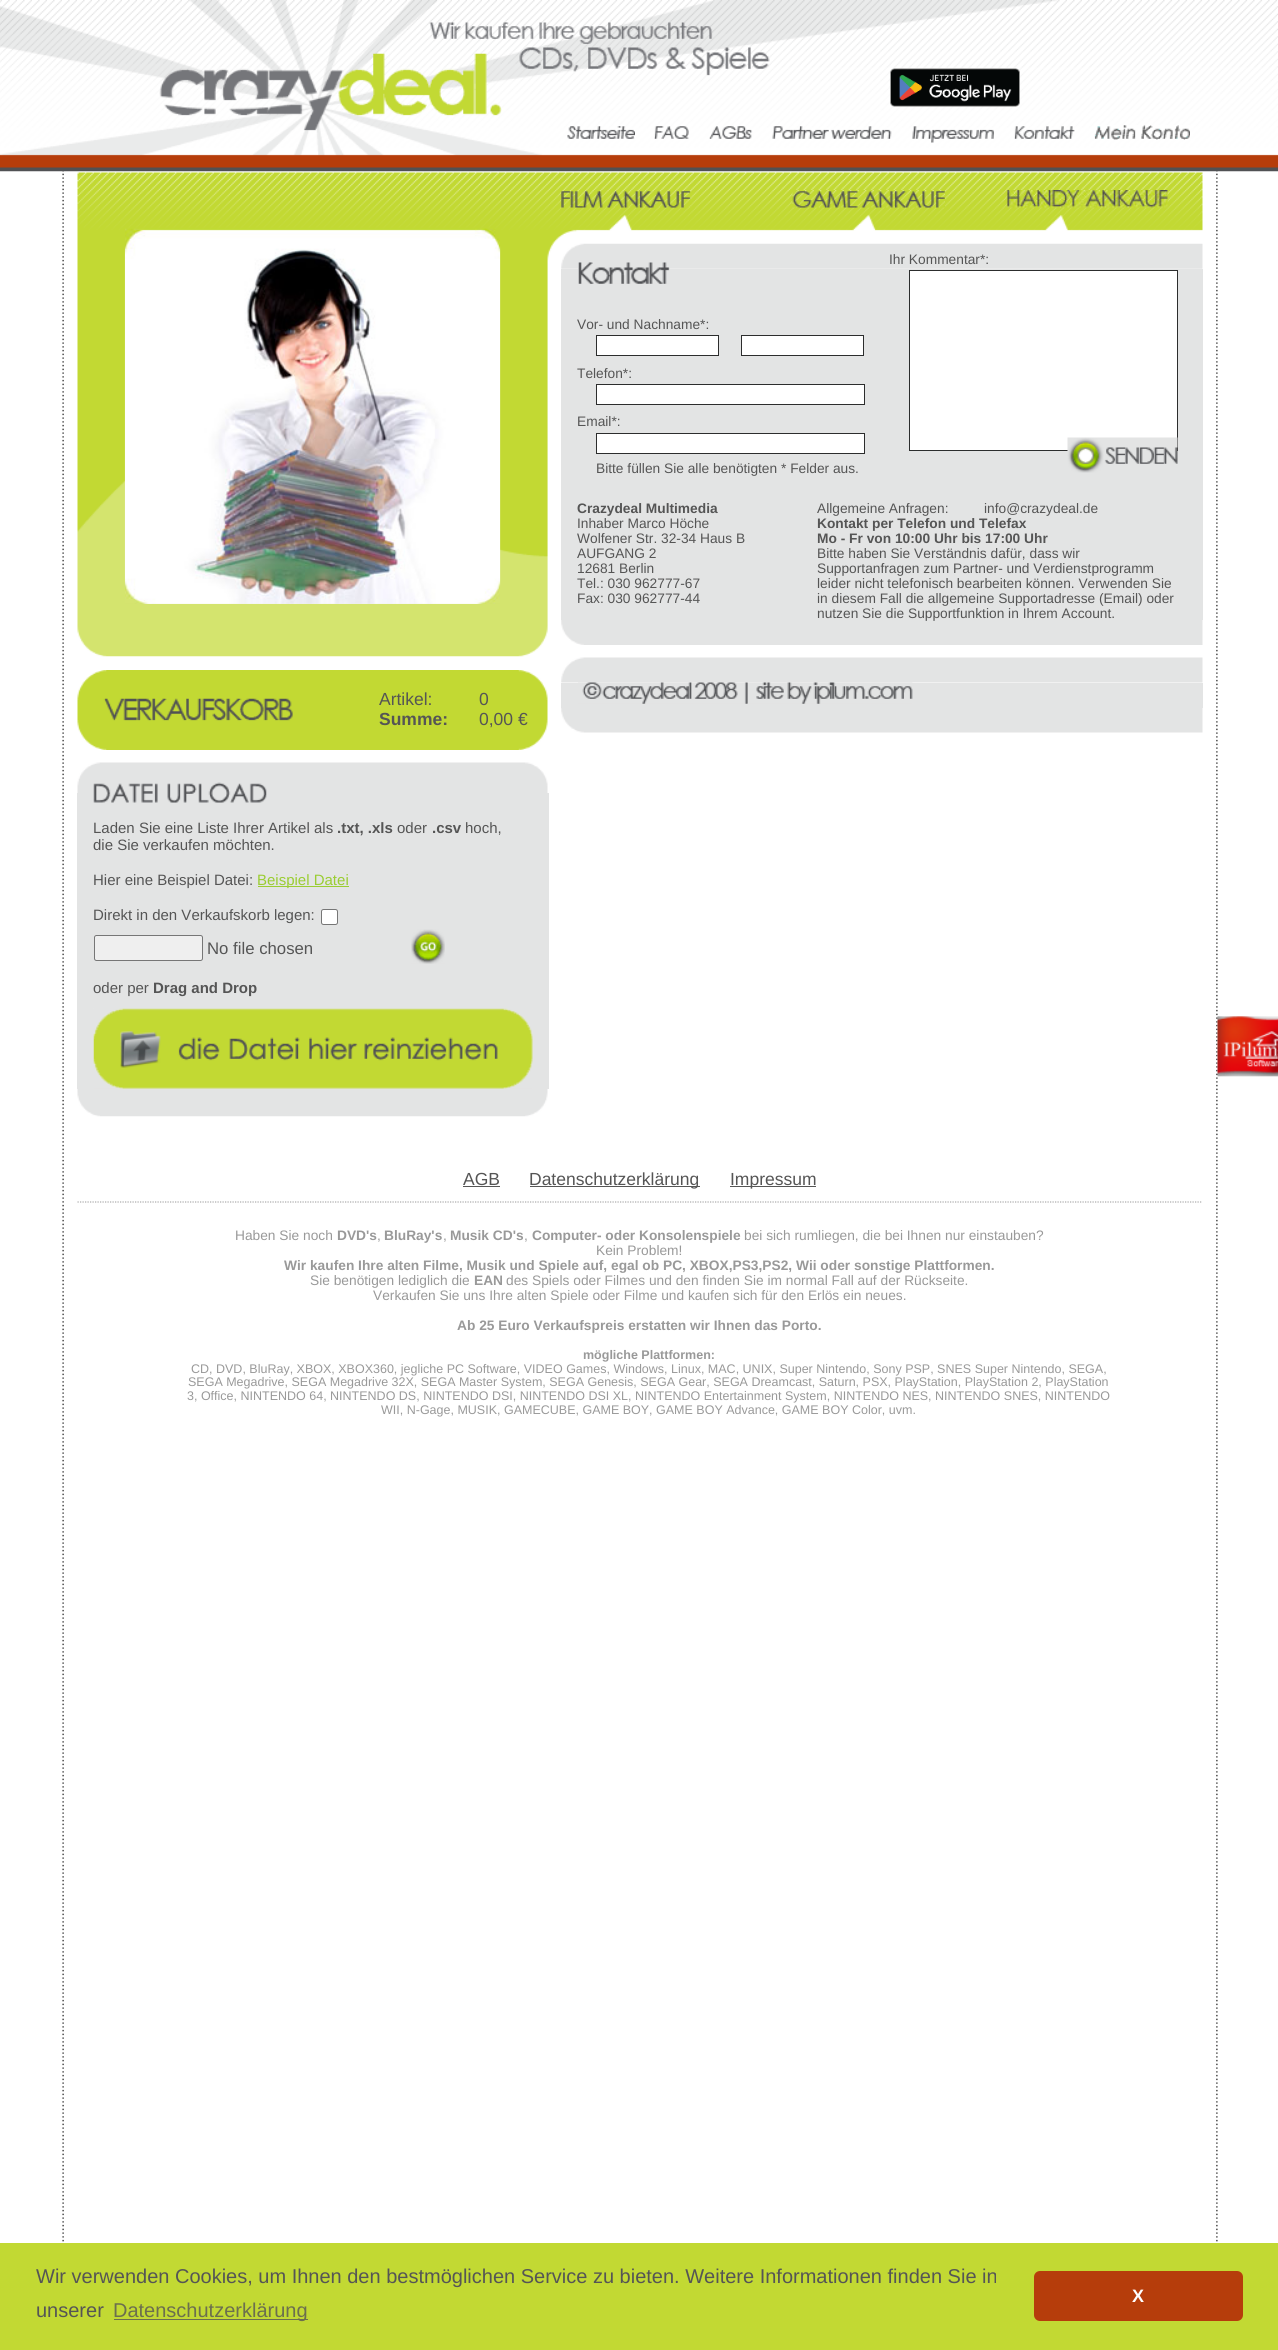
#include <cairo/cairo.h>
#include <math.h>
#include <stddef.h>

typedef struct { double x, y; const char *s; } line_t;
typedef struct { double x, y, w, h; unsigned color; } box_t;
static cairo_t *cr;

static void rgb(unsigned color)
{
	cairo_set_source_rgb(cr, (color >> 16) / 255.0, (color >> 8 & 255) / 255.0, (color & 255) / 255.0);
}

static void rrect(double x, double y, double w, double h, double r)
{
	cairo_new_sub_path(cr);
	cairo_arc(cr, x + w - r, y + h - r, r, 0, M_PI / 2);
	cairo_arc(cr, x + r, y + h - r, r, M_PI / 2, M_PI);
	cairo_arc(cr, x + r, y + r, r, M_PI, 1.5 * M_PI);
	cairo_arc(cr, x + w - r, y + r, r, 1.5 * M_PI, 2 * M_PI);
	cairo_close_path(cr);
}

static void image(const char *path, double x, double y, double w, double h)
{
	cairo_surface_t *image = cairo_image_surface_create_from_png(path);
	cairo_save(cr);
	cairo_set_source_surface(cr, image, x, y);
	cairo_rectangle(cr, x, y, w, h);
	cairo_fill(cr);
	cairo_restore(cr);
	cairo_surface_destroy(image);
}

int main(void) {
	cairo_surface_t *surface = cairo_image_surface_create(CAIRO_FORMAT_RGB24, 1278, 2350);
	cr = cairo_create(surface);
	cairo_font_options_t *options = cairo_font_options_create();
	cairo_font_options_set_hint_metrics(options, CAIRO_HINT_METRICS_OFF);
	cairo_font_options_set_hint_style(options, CAIRO_HINT_STYLE_NONE);
	cairo_set_font_options(cr, options);
	cairo_set_miter_limit(cr, 4);
	rgb(0xffffff);
	cairo_paint(cr);
	image("img/1.png", 62, 171, 1156, 2072);
	image("img/2.png", 0, 0, 1278, 172);
	image("img/3.png", 890, 68, 130, 39);
	image("img/4.png", 567, 126, 68, 13);
	image("img/5.png", 654, 126, 35, 13);
	image("img/6.png", 709, 126, 44, 13);
	image("img/7.png", 772, 126, 120, 13);
	image("img/8.png", 912, 126, 82, 17);
	image("img/9.png", 1014, 126, 61, 13);
	image("img/10.png", 1094, 125, 96, 15);
	image("img/11.png", 77, 172, 1126, 485);
	image("img/12.png", 561, 190, 131, 18);
	image("img/13.png", 792, 190, 153, 18);
	image("img/14.png", 1007, 190, 161, 18);
	image("img/15.png", 561, 243, 642, 26);
	image("img/16.png", 561, 620, 642, 25);
	rgb(0xe3e4e4);
	cairo_rectangle(cr, 561, 269, 642, 351);
	cairo_fill(cr);
	rgb(0xffffff);
	cairo_rectangle(cr, 909.5, 270.5, 268, 180);
	cairo_fill_preserve(cr);
	rgb(0x2c2d2d);
	cairo_set_line_width(cr, 1);
	cairo_stroke(cr);
	rgb(0xffffff);
	cairo_rectangle(cr, 596.5, 335.5, 122, 20);
	cairo_fill_preserve(cr);
	rgb(0x2c2d2d);
	cairo_stroke(cr);
	rgb(0xffffff);
	cairo_rectangle(cr, 741.5, 335.5, 122, 20);
	cairo_fill_preserve(cr);
	rgb(0x2c2d2d);
	cairo_stroke(cr);
	rgb(0xffffff);
	cairo_rectangle(cr, 596.5, 384.5, 268, 20);
	cairo_fill_preserve(cr);
	rgb(0x2c2d2d);
	cairo_stroke(cr);
	rgb(0xffffff);
	cairo_rectangle(cr, 596.5, 433.5, 268, 20);
	cairo_fill_preserve(cr);
	rgb(0x2c2d2d);
	cairo_stroke(cr);
	image("img/17.png", 1067, 437, 111, 36);
	image("img/18.png", 578, 262, 92, 22);
	image("img/19.png", 561, 657, 642, 26);
	image("img/20.png", 561, 708, 642, 25);
	rgb(0xe3e4e4);
	cairo_rectangle(cr, 561, 683, 642, 25);
	cairo_fill(cr);
	image("img/21.png", 578, 682, 177, 22);
	image("img/22.png", 755, 682, 158, 22);
	image("img/23.png", 125, 228, 375, 376);
	image("img/24.png", 77, 670, 471, 80);
	image("img/25.png", 77, 762, 471, 31);
	cairo_rectangle(cr, 77, 793, 472, 296);
	cairo_fill(cr);
	image("img/26.png", 93, 782, 174, 21);
	rgb(0x9acd32);
	cairo_rectangle(cr, 258, 886, 91, 1);
	cairo_fill(cr);
	rgb(0xffffff);
	rrect(321.5, 909.5, 16, 15, 2);
	cairo_fill_preserve(cr);
	rgb(0x767676);
	cairo_stroke(cr);
	rgb(0xefefef);
	rrect(94.5, 935.5, 108, 25, 2);
	cairo_fill_preserve(cr);
	rgb(0x767676);
	cairo_stroke(cr);
	image("img/27.png", 411, 929, 34, 35);
	image("img/28.png", 93, 1008, 440, 81);
	image("img/29.png", 77, 1088, 471, 29);
	cairo_new_path(cr);
	cairo_move_to(cr, 77.5, 1202);
	cairo_line_to(cr, 1202.5, 1202);
	rgb(0xaaaaaa);
	cairo_set_line_width(cr, 1.2);
	cairo_set_dash(cr, (double[]){1.25, 1.25}, 2, 0);
	cairo_stroke(cr);
	{
		static const box_t items[] = {
			{463, 1186, 37, 1, 0x555555},
			{530, 1186, 170, 1, 0x555555},
			{730, 1186, 86, 1, 0x555555},
		};
		for (size_t i = 0; i < sizeof items / sizeof *items; i++) {
			rgb(items[i].color);
			cairo_rectangle(cr, items[i].x, items[i].y, items[i].w, items[i].h);
			cairo_fill(cr);
		}
	}
	image("img/30.png", 1217, 1016, 61, 61);
	rgb(0xc2d933);
	cairo_rectangle(cr, 0, 2243, 1278, 107);
	cairo_fill(cr);
	rgb(0x6b6f4e);
	cairo_rectangle(cr, 114, 2319, 194, 1);
	cairo_fill(cr);
	rgb(0xb63d0b);
	rrect(1034, 2271, 209, 50, 6);
	cairo_fill(cr);
	cairo_select_font_face(cr, "Liberation Sans", CAIRO_FONT_SLANT_NORMAL, CAIRO_FONT_WEIGHT_NORMAL);
	cairo_set_font_size(cr, 13.75);
	rgb(0x555555);
	{
		static const line_t items[] = {
			{889, 264, "Ihr Kommentar*:"},
			{577, 329, "Vor- und Nachname*:"},
			{577, 378, "Telefon*:"},
			{577, 426, "Email*:"},
			{596, 473, "Bitte füllen Sie alle benötigten * Felder aus."},
		};
		for (size_t i = 0; i < sizeof items / sizeof *items; i++) {
			cairo_move_to(cr, items[i].x, items[i].y);
			cairo_show_text(cr, items[i].s);
		}
	}
	cairo_select_font_face(cr, "Liberation Sans", CAIRO_FONT_SLANT_NORMAL, CAIRO_FONT_WEIGHT_BOLD);
	cairo_move_to(cr, 577, 513);
	cairo_show_text(cr, "Crazydeal Multimedia");
	cairo_select_font_face(cr, "Liberation Sans", CAIRO_FONT_SLANT_NORMAL, CAIRO_FONT_WEIGHT_NORMAL);
	{
		static const line_t items[] = {
			{577, 528, "Inhaber Marco Höche"},
			{577, 543, "Wolfener Str. 32-34 Haus B"},
			{577, 558, "AUFGANG 2"},
			{577, 573, "12681 Berlin"},
			{577, 588, "Tel.: 030 962777-67"},
			{577, 603, "Fax: 030 962777-44"},
			{817, 513, "Allgemeine Anfragen:"},
			{984, 513, "info@crazydeal.de"},
		};
		for (size_t i = 0; i < sizeof items / sizeof *items; i++) {
			cairo_move_to(cr, items[i].x, items[i].y);
			cairo_show_text(cr, items[i].s);
		}
	}
	cairo_select_font_face(cr, "Liberation Sans", CAIRO_FONT_SLANT_NORMAL, CAIRO_FONT_WEIGHT_BOLD);
	cairo_move_to(cr, 817, 528);
	cairo_show_text(cr, "Kontakt per Telefon und Telefax");
	cairo_move_to(cr, 817, 543);
	cairo_show_text(cr, "Mo - Fr von 10:00 Uhr bis 17:00 Uhr");
	cairo_select_font_face(cr, "Liberation Sans", CAIRO_FONT_SLANT_NORMAL, CAIRO_FONT_WEIGHT_NORMAL);
	{
		static const line_t items[] = {
			{817, 558, "Bitte haben Sie Verständnis dafür, dass wir"},
			{817, 573, "Supportanfragen zum Partner- und Verdienstprogramm"},
			{817, 588, "leider nicht telefonisch bearbeiten können. Verwenden Sie"},
			{817, 603, "in diesem Fall die allgemeine Supportadresse (Email) oder"},
			{817, 618, "nutzen Sie die Supportfunktion in Ihrem Account."},
		};
		for (size_t i = 0; i < sizeof items / sizeof *items; i++) {
			cairo_move_to(cr, items[i].x, items[i].y);
			cairo_show_text(cr, items[i].s);
		}
	}
	cairo_set_font_size(cr, 17.5);
	cairo_move_to(cr, 379, 705);
	cairo_show_text(cr, "Artikel:");
	cairo_move_to(cr, 479, 705);
	cairo_show_text(cr, "0");
	cairo_select_font_face(cr, "Liberation Sans", CAIRO_FONT_SLANT_NORMAL, CAIRO_FONT_WEIGHT_BOLD);
	cairo_move_to(cr, 379, 725);
	cairo_show_text(cr, "Summe:");
	cairo_select_font_face(cr, "Liberation Sans", CAIRO_FONT_SLANT_NORMAL, CAIRO_FONT_WEIGHT_NORMAL);
	cairo_move_to(cr, 479, 725);
	cairo_show_text(cr, "0,00 €");
	cairo_set_font_size(cr, 15);
	cairo_move_to(cr, 93, 833);
	cairo_show_text(cr, "Laden Sie eine Liste Ihrer Artikel als");
	cairo_select_font_face(cr, "Liberation Sans", CAIRO_FONT_SLANT_NORMAL, CAIRO_FONT_WEIGHT_BOLD);
	cairo_move_to(cr, 337, 833);
	cairo_show_text(cr, ".txt, .xls");
	cairo_select_font_face(cr, "Liberation Sans", CAIRO_FONT_SLANT_NORMAL, CAIRO_FONT_WEIGHT_NORMAL);
	cairo_move_to(cr, 397, 833);
	cairo_show_text(cr, "oder");
	cairo_select_font_face(cr, "Liberation Sans", CAIRO_FONT_SLANT_NORMAL, CAIRO_FONT_WEIGHT_BOLD);
	cairo_move_to(cr, 432, 833);
	cairo_show_text(cr, ".csv");
	cairo_select_font_face(cr, "Liberation Sans", CAIRO_FONT_SLANT_NORMAL, CAIRO_FONT_WEIGHT_NORMAL);
	{
		static const line_t items[] = {
			{465, 833, "hoch,"},
			{93, 850, "die Sie verkaufen möchten."},
			{93, 885, "Hier eine Beispiel Datei:"},
		};
		for (size_t i = 0; i < sizeof items / sizeof *items; i++) {
			cairo_move_to(cr, items[i].x, items[i].y);
			cairo_show_text(cr, items[i].s);
		}
	}
	rgb(0x9acd32);
	cairo_move_to(cr, 257, 885);
	cairo_show_text(cr, "Beispiel Datei");
	rgb(0x555555);
	cairo_move_to(cr, 93, 920);
	cairo_show_text(cr, "Direkt in den Verkaufskorb legen:");
	cairo_set_font_size(cr, 16.75);
	cairo_move_to(cr, 207, 954);
	cairo_show_text(cr, "No file chosen");
	cairo_set_font_size(cr, 15);
	cairo_move_to(cr, 93, 993);
	cairo_show_text(cr, "oder per");
	cairo_select_font_face(cr, "Liberation Sans", CAIRO_FONT_SLANT_NORMAL, CAIRO_FONT_WEIGHT_BOLD);
	cairo_move_to(cr, 153, 993);
	cairo_show_text(cr, "Drag and Drop");
	cairo_select_font_face(cr, "Liberation Sans", CAIRO_FONT_SLANT_NORMAL, CAIRO_FONT_WEIGHT_NORMAL);
	cairo_set_font_size(cr, 17.5);
	{
		static const line_t items[] = {
			{463, 1185, "AGB"},
			{529, 1185, "Datenschutzerklärung"},
			{730, 1185, "Impressum"},
		};
		for (size_t i = 0; i < sizeof items / sizeof *items; i++) {
			cairo_move_to(cr, items[i].x, items[i].y);
			cairo_show_text(cr, items[i].s);
		}
	}
	cairo_set_font_size(cr, 13.75);
	rgb(0x999999);
	cairo_move_to(cr, 235, 1240);
	cairo_show_text(cr, "Haben Sie noch");
	cairo_select_font_face(cr, "Liberation Sans", CAIRO_FONT_SLANT_NORMAL, CAIRO_FONT_WEIGHT_BOLD);
	cairo_move_to(cr, 337, 1240);
	cairo_show_text(cr, "DVD's");
	cairo_select_font_face(cr, "Liberation Sans", CAIRO_FONT_SLANT_NORMAL, CAIRO_FONT_WEIGHT_NORMAL);
	cairo_move_to(cr, 377, 1240);
	cairo_show_text(cr, ",");
	cairo_select_font_face(cr, "Liberation Sans", CAIRO_FONT_SLANT_NORMAL, CAIRO_FONT_WEIGHT_BOLD);
	cairo_move_to(cr, 384, 1240);
	cairo_show_text(cr, "BluRay's");
	cairo_select_font_face(cr, "Liberation Sans", CAIRO_FONT_SLANT_NORMAL, CAIRO_FONT_WEIGHT_NORMAL);
	cairo_move_to(cr, 443, 1240);
	cairo_show_text(cr, ",");
	cairo_select_font_face(cr, "Liberation Sans", CAIRO_FONT_SLANT_NORMAL, CAIRO_FONT_WEIGHT_BOLD);
	cairo_move_to(cr, 450, 1240);
	cairo_show_text(cr, "Musik CD's");
	cairo_select_font_face(cr, "Liberation Sans", CAIRO_FONT_SLANT_NORMAL, CAIRO_FONT_WEIGHT_NORMAL);
	cairo_move_to(cr, 524, 1240);
	cairo_show_text(cr, ",");
	cairo_select_font_face(cr, "Liberation Sans", CAIRO_FONT_SLANT_NORMAL, CAIRO_FONT_WEIGHT_BOLD);
	cairo_move_to(cr, 532, 1240);
	cairo_show_text(cr, "Computer- oder Konsolenspiele");
	cairo_select_font_face(cr, "Liberation Sans", CAIRO_FONT_SLANT_NORMAL, CAIRO_FONT_WEIGHT_NORMAL);
	cairo_move_to(cr, 744, 1240);
	cairo_show_text(cr, "bei sich rumliegen, die bei Ihnen nur einstauben?");
	cairo_move_to(cr, 596, 1255);
	cairo_show_text(cr, "Kein Problem!");
	cairo_select_font_face(cr, "Liberation Sans", CAIRO_FONT_SLANT_NORMAL, CAIRO_FONT_WEIGHT_BOLD);
	cairo_move_to(cr, 284, 1270);
	cairo_show_text(cr, "Wir kaufen Ihre alten Filme, Musik und Spiele auf, egal ob PC, XBOX,PS3,PS2, Wii oder sonstige Plattformen.");
	cairo_select_font_face(cr, "Liberation Sans", CAIRO_FONT_SLANT_NORMAL, CAIRO_FONT_WEIGHT_NORMAL);
	cairo_move_to(cr, 310, 1285);
	cairo_show_text(cr, "Sie benötigen lediglich die");
	cairo_select_font_face(cr, "Liberation Sans", CAIRO_FONT_SLANT_NORMAL, CAIRO_FONT_WEIGHT_BOLD);
	cairo_move_to(cr, 474, 1285);
	cairo_show_text(cr, "EAN");
	cairo_select_font_face(cr, "Liberation Sans", CAIRO_FONT_SLANT_NORMAL, CAIRO_FONT_WEIGHT_NORMAL);
	cairo_move_to(cr, 506, 1285);
	cairo_show_text(cr, "des Spiels oder Filmes und den finden Sie im normal Fall auf der Rückseite.");
	cairo_move_to(cr, 373, 1300);
	cairo_show_text(cr, "Verkaufen Sie uns Ihre alten Spiele oder Filme und kaufen sich für den Erlös ein neues.");
	cairo_select_font_face(cr, "Liberation Sans", CAIRO_FONT_SLANT_NORMAL, CAIRO_FONT_WEIGHT_BOLD);
	cairo_move_to(cr, 457, 1330);
	cairo_show_text(cr, "Ab 25 Euro Verkaufspreis erstatten wir Ihnen das Porto.");
	cairo_set_font_size(cr, 12.5);
	cairo_move_to(cr, 583, 1359);
	cairo_show_text(cr, "mögliche Plattformen:");
	cairo_select_font_face(cr, "Liberation Sans", CAIRO_FONT_SLANT_NORMAL, CAIRO_FONT_WEIGHT_NORMAL);
	{
		static const line_t items[] = {
			{191, 1373, "CD, DVD, BluRay, XBOX, XBOX360, jegliche PC Software, VIDEO Games, Windows, Linux, MAC, UNIX, Super Nintendo, Sony PSP, SNES Super Nintendo, SEGA,"},
			{188, 1386, "SEGA Megadrive, SEGA Megadrive 32X, SEGA Master System, SEGA Genesis, SEGA Gear, SEGA Dreamcast, Saturn, PSX, PlayStation, PlayStation 2, PlayStation"},
			{187, 1400, "3, Office, NINTENDO 64, NINTENDO DS, NINTENDO DSI, NINTENDO DSI XL, NINTENDO Entertainment System, NINTENDO NES, NINTENDO SNES, NINTENDO"},
			{381, 1414, "WII, N-Gage, MUSIK, GAMECUBE, GAME BOY, GAME BOY Advance, GAME BOY Color, uvm."},
		};
		for (size_t i = 0; i < sizeof items / sizeof *items; i++) {
			cairo_move_to(cr, items[i].x, items[i].y);
			cairo_show_text(cr, items[i].s);
		}
	}
	cairo_set_font_size(cr, 20);
	rgb(0x555555);
	cairo_move_to(cr, 36, 2283);
	cairo_show_text(cr, "Wir verwenden Cookies, um Ihnen den bestmöglichen Service zu bieten. Weitere Informationen finden Sie in");
	cairo_move_to(cr, 36, 2317);
	cairo_show_text(cr, "unserer");
	rgb(0x6b6f4e);
	cairo_move_to(cr, 113, 2317);
	cairo_show_text(cr, "Datenschutzerklärung");
	cairo_select_font_face(cr, "Liberation Sans", CAIRO_FONT_SLANT_NORMAL, CAIRO_FONT_WEIGHT_BOLD);
	cairo_set_font_size(cr, 18);
	rgb(0xffffff);
	cairo_move_to(cr, 1132, 2302);
	cairo_show_text(cr, "X");
	cairo_surface_write_to_png(surface, "page.png");
	cairo_font_options_destroy(options);
	cairo_destroy(cr);
	cairo_surface_destroy(surface);
	return 0;
}
